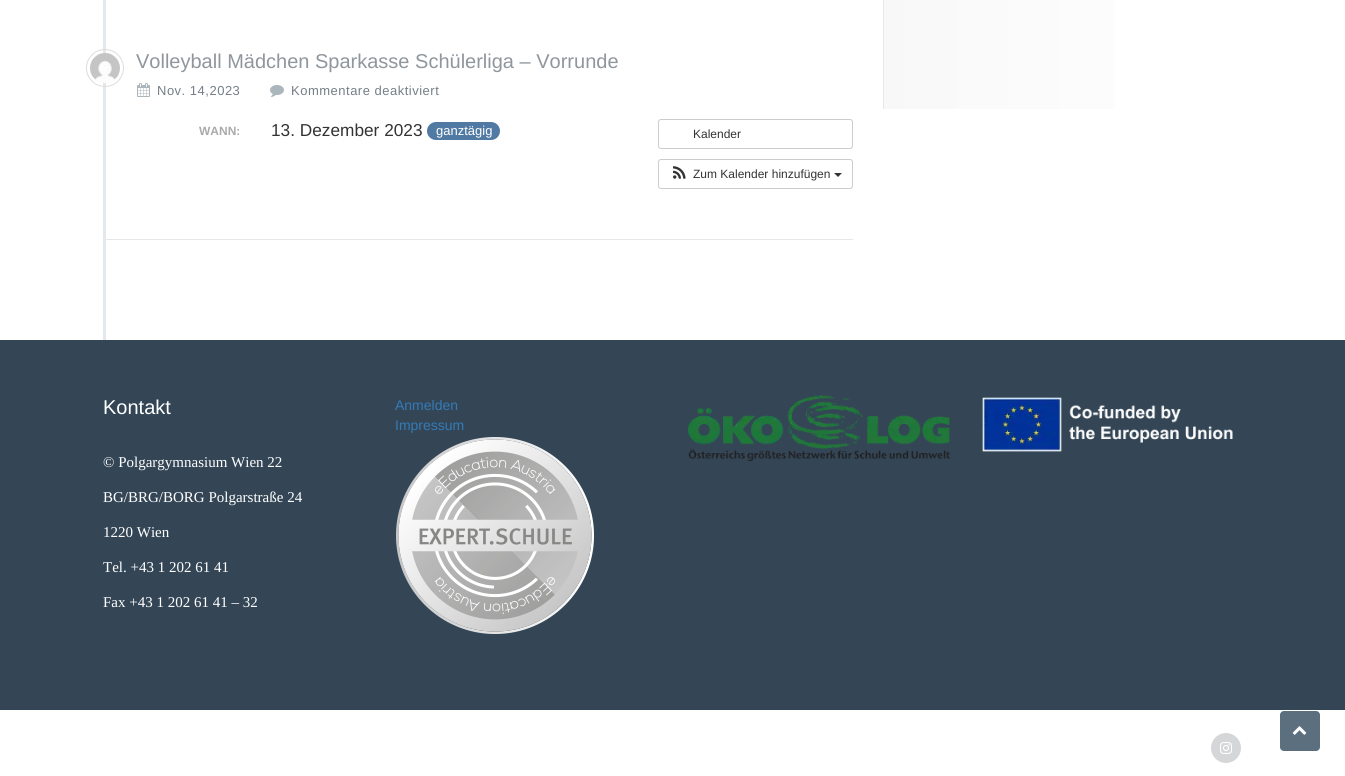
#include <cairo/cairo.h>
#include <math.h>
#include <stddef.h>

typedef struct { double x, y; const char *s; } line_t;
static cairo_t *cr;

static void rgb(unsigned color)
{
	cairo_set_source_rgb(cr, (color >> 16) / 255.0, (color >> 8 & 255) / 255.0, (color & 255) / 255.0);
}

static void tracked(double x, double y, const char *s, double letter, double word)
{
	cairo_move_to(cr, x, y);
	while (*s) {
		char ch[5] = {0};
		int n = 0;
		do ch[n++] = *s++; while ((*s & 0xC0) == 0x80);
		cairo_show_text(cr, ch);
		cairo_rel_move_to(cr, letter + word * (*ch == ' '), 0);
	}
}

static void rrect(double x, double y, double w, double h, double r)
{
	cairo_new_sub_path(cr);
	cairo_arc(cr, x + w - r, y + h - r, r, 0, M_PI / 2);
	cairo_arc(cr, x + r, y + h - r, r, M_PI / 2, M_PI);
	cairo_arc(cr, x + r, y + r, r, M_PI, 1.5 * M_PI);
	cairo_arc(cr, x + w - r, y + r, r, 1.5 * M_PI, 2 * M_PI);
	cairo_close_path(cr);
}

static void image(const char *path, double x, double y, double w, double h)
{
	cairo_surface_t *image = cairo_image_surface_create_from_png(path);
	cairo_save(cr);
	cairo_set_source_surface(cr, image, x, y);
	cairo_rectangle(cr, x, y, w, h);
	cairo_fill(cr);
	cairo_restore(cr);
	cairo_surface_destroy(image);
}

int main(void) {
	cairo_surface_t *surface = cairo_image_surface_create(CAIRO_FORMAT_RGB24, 1345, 776);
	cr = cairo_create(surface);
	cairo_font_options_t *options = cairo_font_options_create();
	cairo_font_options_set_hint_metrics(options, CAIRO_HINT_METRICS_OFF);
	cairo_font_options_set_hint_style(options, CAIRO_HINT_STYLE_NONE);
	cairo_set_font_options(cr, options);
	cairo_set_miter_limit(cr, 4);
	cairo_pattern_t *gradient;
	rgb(0xffffff);
	cairo_paint(cr);
	rgb(0xe4e8ea);
	cairo_rectangle(cr, 103, 0, 3, 340);
	cairo_fill(cr);
	cairo_rectangle(cr, 106, 239, 747, 1);
	cairo_fill(cr);
	cairo_arc(cr, 105, 68, 18.5, 0, 2 * M_PI);
	rgb(0xdddddd);
	cairo_set_line_width(cr, 1);
	cairo_stroke(cr);
	image("img/1.png", 90, 53, 30, 30);
	image("img/2.png", 137, 83, 13, 14);
	image("img/3.png", 270, 85, 14, 12);
	rgb(0x507aa3);
	rrect(427, 122, 73, 18, 9);
	cairo_fill(cr);
	rrect(658.5, 119.5, 194, 29, 2.5);
	rgb(0xcccccc);
	cairo_stroke(cr);
	rrect(658.5, 159.5, 194, 29, 2.5);
	cairo_stroke(cr);
	image("img/4.png", 673, 166, 13, 13);
	rgb(0x333333);
	cairo_new_path(cr);
	cairo_move_to(cr, 834, 173);
	cairo_line_to(cr, 842, 173);
	cairo_line_to(cr, 838, 177);
	cairo_close_path(cr);
	cairo_fill(cr);
	gradient = cairo_pattern_create_linear(884, 49, 1243, 49);
	cairo_pattern_add_color_stop_rgba(gradient, 0, 0.973, 0.973, 0.973, 1);
	cairo_pattern_add_color_stop_rgba(gradient, 1, 1, 1, 1, 1);
	cairo_set_source(cr, gradient);
	cairo_pattern_destroy(gradient);
	cairo_rectangle(cr, 884, 0, 231, 109);
	cairo_fill(cr);
	rgb(0xe4e8ea);
	cairo_rectangle(cr, 883, 0, 1, 109);
	cairo_fill(cr);
	rgb(0x344656);
	cairo_rectangle(cr, 0, 340, 1345, 370);
	cairo_fill(cr);
	image("img/5.png", 396, 437, 198, 197);
	image("img/6.png", 688, 395, 262, 66);
	image("img/7.png", 982, 397, 251, 55);
	rgb(0xd4d6d8);
	cairo_arc(cr, 1226, 748, 15, 0, 2 * M_PI);
	cairo_fill(cr);
	image("img/8.png", 1220, 742, 12, 12);
	rgb(0x5b6f7f);
	rrect(1280, 711, 40, 40, 4);
	cairo_fill(cr);
	image("img/9.png", 1292, 726, 15, 9);
	cairo_select_font_face(cr, "Liberation Sans", CAIRO_FONT_SLANT_NORMAL, CAIRO_FONT_WEIGHT_NORMAL);
	cairo_set_font_size(cr, 20);
	rgb(0x8f969c);
	cairo_move_to(cr, 136, 68);
	cairo_show_text(cr, "Volleyball Mädchen Sparkasse Schülerliga – Vorrunde");
	cairo_set_font_size(cr, 13);
	rgb(0x737f85);
	tracked(157, 95, "Nov. 14,2023", 0.5, 0);
	tracked(291, 95, "Kommentare deaktiviert", 0.5, 0);
	cairo_select_font_face(cr, "Liberation Sans", CAIRO_FONT_SLANT_NORMAL, CAIRO_FONT_WEIGHT_BOLD);
	cairo_set_font_size(cr, 12);
	rgb(0xaaaaaa);
	cairo_move_to(cr, 199, 135);
	cairo_show_text(cr, "WANN:");
	cairo_select_font_face(cr, "Liberation Sans", CAIRO_FONT_SLANT_NORMAL, CAIRO_FONT_WEIGHT_NORMAL);
	cairo_set_font_size(cr, 17.25);
	rgb(0x333333);
	cairo_move_to(cr, 271, 136);
	cairo_show_text(cr, "13. Dezember 2023");
	cairo_set_font_size(cr, 13);
	rgb(0xffffff);
	cairo_move_to(cr, 436, 135);
	cairo_show_text(cr, "ganztägig");
	cairo_set_font_size(cr, 12);
	rgb(0x333333);
	cairo_move_to(cr, 693, 138);
	cairo_show_text(cr, "Kalender");
	cairo_move_to(cr, 693, 178);
	cairo_show_text(cr, "Zum Kalender hinzufügen");
	cairo_set_font_size(cr, 20);
	rgb(0xffffff);
	cairo_move_to(cr, 103, 414);
	cairo_show_text(cr, "Kontakt");
	cairo_select_font_face(cr, "Liberation Serif", CAIRO_FONT_SLANT_NORMAL, CAIRO_FONT_WEIGHT_NORMAL);
	cairo_set_font_size(cr, 15);
	{
		static const line_t items[] = {
			{103, 467, "© Polgargymnasium Wien 22"},
			{103, 502, "BG/BRG/BORG Polgarstraße 24"},
			{103, 537, "1220 Wien"},
			{103, 572, "Tel. +43 1 202 61 41"},
			{103, 607, "Fax +43 1 202 61 41 – 32"},
		};
		for (size_t i = 0; i < sizeof items / sizeof *items; i++) {
			cairo_move_to(cr, items[i].x, items[i].y);
			cairo_show_text(cr, items[i].s);
		}
	}
	cairo_select_font_face(cr, "Liberation Sans", CAIRO_FONT_SLANT_NORMAL, CAIRO_FONT_WEIGHT_NORMAL);
	cairo_set_font_size(cr, 14);
	rgb(0x337ab7);
	cairo_move_to(cr, 395, 410);
	cairo_show_text(cr, "Anmelden");
	cairo_move_to(cr, 395, 430);
	cairo_show_text(cr, "Impressum");
	cairo_surface_write_to_png(surface, "page.png");
	cairo_font_options_destroy(options);
	cairo_destroy(cr);
	cairo_surface_destroy(surface);
	return 0;
}
